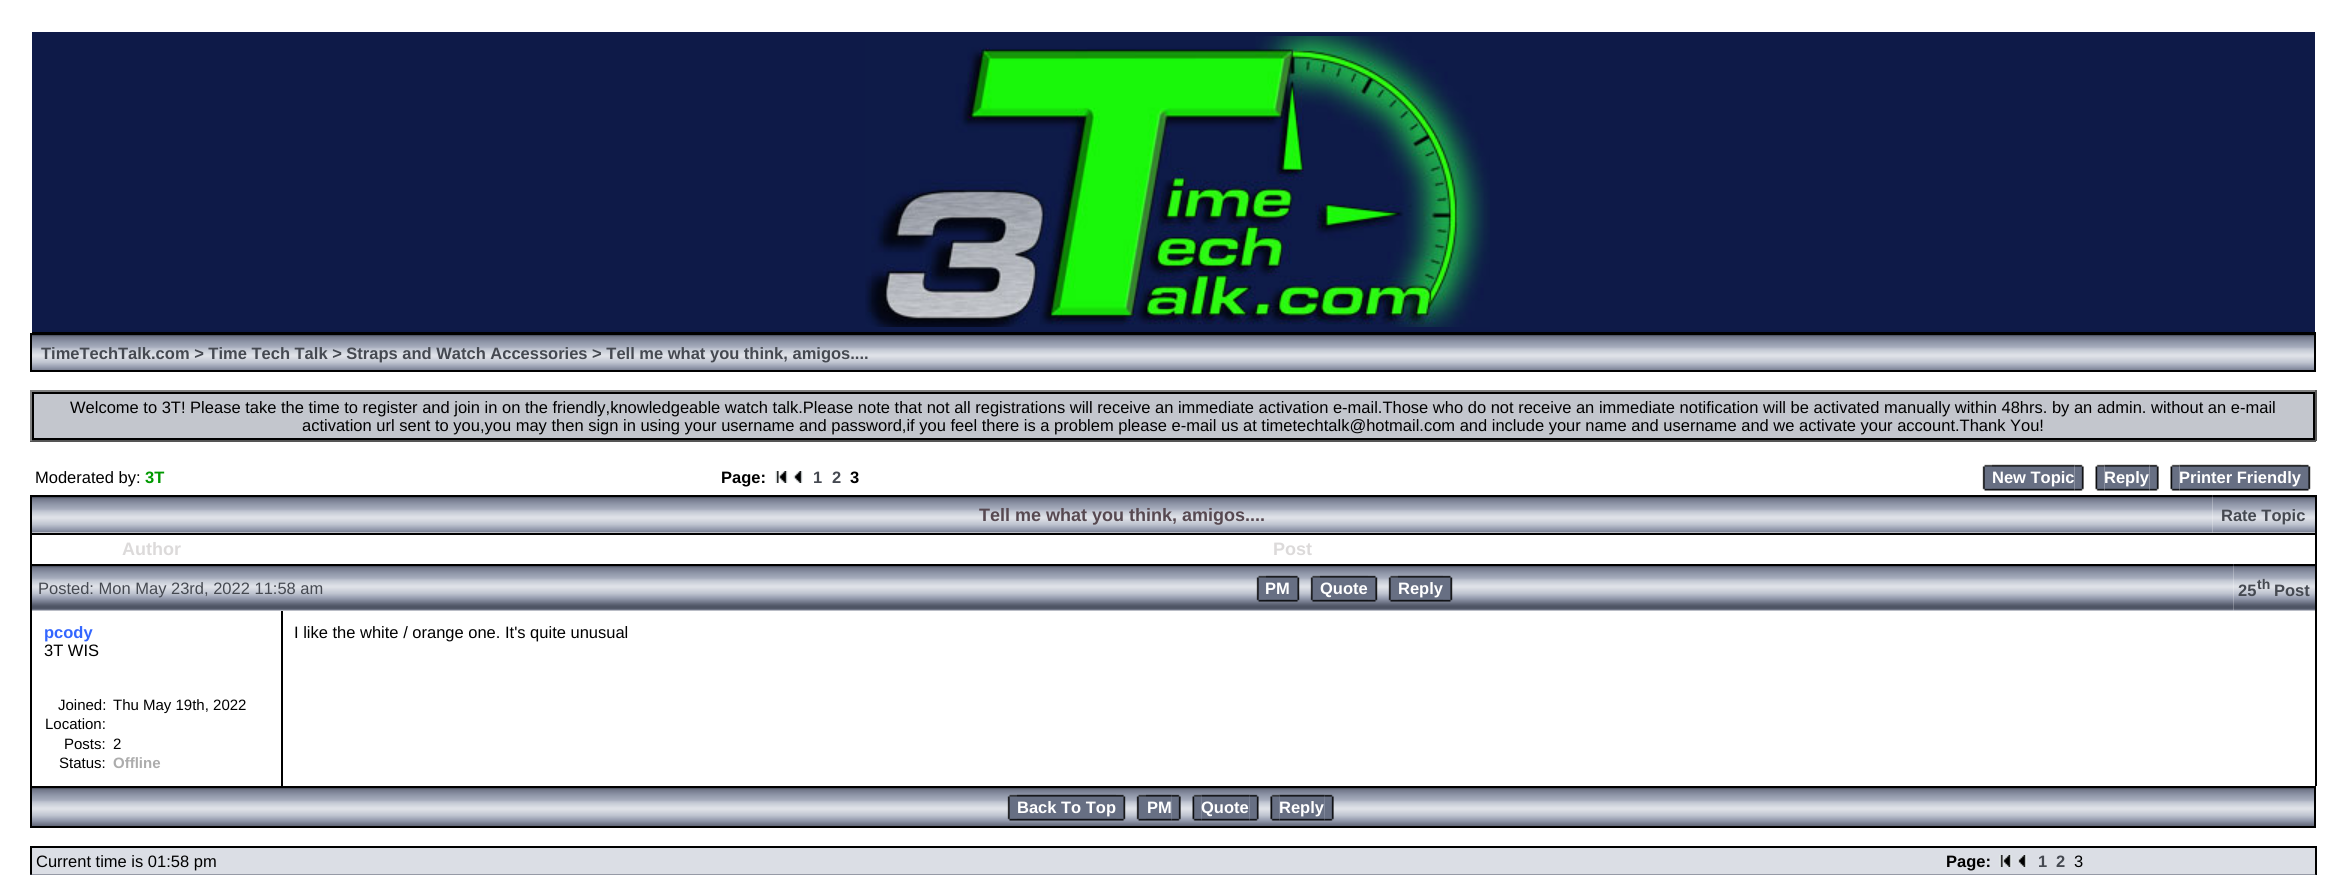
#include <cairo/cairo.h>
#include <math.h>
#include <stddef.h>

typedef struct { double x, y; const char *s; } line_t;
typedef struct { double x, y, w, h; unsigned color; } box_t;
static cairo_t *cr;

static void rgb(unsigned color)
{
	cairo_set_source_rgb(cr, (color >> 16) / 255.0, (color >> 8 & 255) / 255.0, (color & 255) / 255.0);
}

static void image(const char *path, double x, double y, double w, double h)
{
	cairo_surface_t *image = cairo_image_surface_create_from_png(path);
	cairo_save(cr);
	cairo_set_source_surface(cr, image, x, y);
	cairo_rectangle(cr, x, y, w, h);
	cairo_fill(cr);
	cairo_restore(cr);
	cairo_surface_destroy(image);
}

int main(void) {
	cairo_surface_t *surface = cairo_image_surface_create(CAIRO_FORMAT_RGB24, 2346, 875);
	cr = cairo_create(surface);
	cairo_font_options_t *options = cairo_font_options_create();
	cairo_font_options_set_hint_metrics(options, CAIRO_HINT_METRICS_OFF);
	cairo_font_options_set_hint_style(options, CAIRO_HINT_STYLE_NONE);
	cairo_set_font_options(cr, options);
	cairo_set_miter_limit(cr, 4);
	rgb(0xffffff);
	cairo_paint(cr);
	{
		static const box_t items[] = {
			{32, 32, 2283, 300, 0x0e1a48},
			{30, 332, 2286, 1, 0x000000},
			{30, 332, 2, 1, 0xffffff},
		};
		for (size_t i = 0; i < sizeof items / sizeof *items; i++) {
			rgb(items[i].color);
			cairo_rectangle(cr, items[i].x, items[i].y, items[i].w, items[i].h);
			cairo_fill(cr);
		}
	}
	image("img/1.png", 865, 36, 625, 291);
	image("img/2.png", 32, 335, 2282, 35);
	cairo_rectangle(cr, 31, 334, 2284, 37);
	rgb(0x000000);
	cairo_stroke(cr);
	{
		static const box_t items[] = {
			{30, 390, 2286, 2, 0x808080},
			{2315, 390, 2, 51, 0x555555},
			{30, 440, 2286, 2, 0x555555},
			{30, 390, 2, 51, 0x808080},
		};
		for (size_t i = 0; i < sizeof items / sizeof *items; i++) {
			rgb(items[i].color);
			cairo_rectangle(cr, items[i].x, items[i].y, items[i].w, items[i].h);
			cairo_fill(cr);
		}
	}
	rgb(0xc3c6cd);
	cairo_rectangle(cr, 33, 393, 2281, 46);
	cairo_fill_preserve(cr);
	rgb(0x000000);
	cairo_stroke(cr);
	image("img/3.png", 775, 471, 13, 12);
	image("img/4.png", 793, 471, 10, 12);
	image("img/5.png", 1982, 464, 10, 27);
	image("img/6.png", 1992, 464, 83, 27);
	image("img/7.png", 2074, 464, 10, 27);
	image("img/9.png", 2104, 464, 46, 27);
	image("img/8.png", 2095, 464, 10, 27);
	image("img/7.png", 2149, 464, 10, 27);
	image("img/10.png", 2179, 464, 122, 27);
	image("img/8.png", 2170, 464, 10, 27);
	image("img/11.png", 2301, 464, 10, 27);
	image("img/12.png", 32, 497, 2181, 36);
	cairo_rectangle(cr, 30, 495, 2183, 2);
	cairo_fill(cr);
	cairo_rectangle(cr, 30, 495, 2, 38);
	cairo_fill(cr);
	image("img/13.png", 2212, 495, 103, 38);
	{
		static const box_t items[] = {
			{2213, 495, 103, 2, 0x000000},
			{2315, 495, 2, 38, 0x000000},
			{30, 533, 2286, 2, 0x000000},
			{30, 533, 2, 31, 0x000000},
			{2315, 533, 2, 31, 0x000000},
		};
		for (size_t i = 0; i < sizeof items / sizeof *items; i++) {
			rgb(items[i].color);
			cairo_rectangle(cr, items[i].x, items[i].y, items[i].w, items[i].h);
			cairo_fill(cr);
		}
	}
	image("img/14.png", 32, 566, 292, 45);
	cairo_rectangle(cr, 30, 564, 2204, 2);
	cairo_fill(cr);
	cairo_rectangle(cr, 30, 564, 2, 222);
	cairo_fill(cr);
	image("img/15.png", 324, 566, 1910, 45);
	image("img/16.png", 1256, 575, 10, 27);
	image("img/17.png", 1266, 575, 24, 27);
	image("img/18.png", 1290, 575, 10, 27);
	image("img/19.png", 1310, 575, 10, 27);
	image("img/20.png", 1320, 575, 48, 27);
	image("img/21.png", 1368, 575, 10, 27);
	image("img/19.png", 1388, 575, 10, 27);
	image("img/22.png", 1398, 575, 45, 27);
	image("img/21.png", 1443, 575, 10, 27);
	image("img/23.png", 2233, 564, 82, 47);
	{
		static const box_t items[] = {
			{2234, 564, 82, 2, 0x000000},
			{2315, 564, 2, 222, 0x000000},
			{281, 611, 2, 175, 0x000000},
		};
		for (size_t i = 0; i < sizeof items / sizeof *items; i++) {
			rgb(items[i].color);
			cairo_rectangle(cr, items[i].x, items[i].y, items[i].w, items[i].h);
			cairo_fill(cr);
		}
	}
	image("img/24.png", 32, 788, 2282, 38);
	cairo_rectangle(cr, 31, 787, 2284, 40);
	cairo_stroke(cr);
	image("img/25.png", 1007, 794, 10, 27);
	image("img/26.png", 1017, 794, 99, 27);
	image("img/27.png", 1116, 794, 10, 27);
	image("img/28.png", 1136, 794, 10, 27);
	image("img/29.png", 1146, 794, 26, 27);
	image("img/30.png", 1171, 794, 10, 27);
	image("img/32.png", 1201, 794, 49, 27);
	image("img/31.png", 1192, 794, 10, 27);
	image("img/33.png", 1249, 794, 10, 27);
	image("img/35.png", 1279, 794, 46, 27);
	image("img/34.png", 1270, 794, 10, 27);
	image("img/30.png", 1324, 794, 10, 27);
	{
		static const box_t items[] = {
			{32, 848, 2283, 26, 0xdbdee5},
			{30, 874, 2286, 1, 0x969aa6},
			{30, 846, 2286, 2, 0x000000},
			{30, 846, 2, 29, 0x000000},
			{30, 874, 2, 1, 0x282b33},
			{2315, 846, 2, 29, 0x000000},
			{2315, 874, 1, 1, 0x282b33},
		};
		for (size_t i = 0; i < sizeof items / sizeof *items; i++) {
			rgb(items[i].color);
			cairo_rectangle(cr, items[i].x, items[i].y, items[i].w, items[i].h);
			cairo_fill(cr);
		}
	}
	image("img/36.png", 1999, 855, 13, 12);
	image("img/37.png", 2017, 855, 10, 12);
	cairo_select_font_face(cr, "Liberation Sans", CAIRO_FONT_SLANT_NORMAL, CAIRO_FONT_WEIGHT_BOLD);
	cairo_set_font_size(cr, 16.5);
	rgb(0x454951);
	cairo_move_to(cr, 41, 359);
	cairo_show_text(cr, "TimeTechTalk.com > Time Tech Talk > Straps and Watch Accessories > Tell me what you think, amigos....");
	cairo_select_font_face(cr, "Liberation Sans", CAIRO_FONT_SLANT_NORMAL, CAIRO_FONT_WEIGHT_NORMAL);
	rgb(0x000000);
	{
		static const line_t items[] = {
			{70, 413, "Welcome to 3T! Please take the time to register and join in on the friendly,knowledgeable watch talk.Please note that not all registrations will receive an immediate activation e-mail.Those who do not receive an immediate notification will be activated manually within 48hrs. by an admin. without an e-mail"},
			{302, 431, "activation url sent to you,you may then sign in using your username and password,if you feel there is a problem please e-mail us at timetechtalk@hotmail.com and include your name and username and we activate your account.Thank You!"},
			{35, 483, "Moderated by:"},
		};
		for (size_t i = 0; i < sizeof items / sizeof *items; i++) {
			cairo_move_to(cr, items[i].x, items[i].y);
			cairo_show_text(cr, items[i].s);
		}
	}
	cairo_select_font_face(cr, "Liberation Sans", CAIRO_FONT_SLANT_NORMAL, CAIRO_FONT_WEIGHT_BOLD);
	rgb(0x009900);
	cairo_move_to(cr, 145, 483);
	cairo_show_text(cr, "3T");
	rgb(0x000000);
	cairo_move_to(cr, 721, 483);
	cairo_show_text(cr, "Page:");
	rgb(0x454951);
	cairo_move_to(cr, 813, 483);
	cairo_show_text(cr, "1");
	cairo_move_to(cr, 832, 483);
	cairo_show_text(cr, "2");
	rgb(0x000000);
	cairo_move_to(cr, 850, 483);
	cairo_show_text(cr, "3");
	rgb(0xffffff);
	{
		static const line_t items[] = {
			{1992, 483, "New Topic"},
			{2104, 483, "Reply"},
			{2179, 483, "Printer Friendly"},
		};
		for (size_t i = 0; i < sizeof items / sizeof *items; i++) {
			cairo_move_to(cr, items[i].x, items[i].y);
			cairo_show_text(cr, items[i].s);
		}
	}
	cairo_set_font_size(cr, 18);
	rgb(0x574951);
	cairo_move_to(cr, 979, 521);
	cairo_show_text(cr, "Tell me what you think, amigos....");
	cairo_set_font_size(cr, 16.5);
	rgb(0x454951);
	cairo_move_to(cr, 2221, 521);
	cairo_show_text(cr, "Rate Topic");
	cairo_set_font_size(cr, 18);
	rgb(0xdcdada);
	cairo_move_to(cr, 122, 555);
	cairo_show_text(cr, "Author");
	cairo_move_to(cr, 1273, 555);
	cairo_show_text(cr, "Post");
	cairo_select_font_face(cr, "Liberation Sans", CAIRO_FONT_SLANT_NORMAL, CAIRO_FONT_WEIGHT_NORMAL);
	cairo_set_font_size(cr, 16.5);
	rgb(0x454951);
	cairo_move_to(cr, 38, 594);
	cairo_show_text(cr, "Posted: Mon May 23rd, 2022 11:58 am");
	cairo_select_font_face(cr, "Liberation Sans", CAIRO_FONT_SLANT_NORMAL, CAIRO_FONT_WEIGHT_BOLD);
	rgb(0xffffff);
	{
		static const line_t items[] = {
			{1265, 594, "PM"},
			{1320, 594, "Quote"},
			{1398, 594, "Reply"},
		};
		for (size_t i = 0; i < sizeof items / sizeof *items; i++) {
			cairo_move_to(cr, items[i].x, items[i].y);
			cairo_show_text(cr, items[i].s);
		}
	}
	rgb(0x454951);
	cairo_move_to(cr, 2238, 596);
	cairo_show_text(cr, "25");
	cairo_set_font_size(cr, 14);
	cairo_move_to(cr, 2257, 589);
	cairo_show_text(cr, "th");
	cairo_set_font_size(cr, 16.5);
	cairo_move_to(cr, 2274, 596);
	cairo_show_text(cr, "Post");
	rgb(0x3366ff);
	cairo_move_to(cr, 44, 638);
	cairo_show_text(cr, "pcody");
	cairo_select_font_face(cr, "Liberation Sans", CAIRO_FONT_SLANT_NORMAL, CAIRO_FONT_WEIGHT_NORMAL);
	rgb(0x000000);
	cairo_move_to(cr, 44, 656);
	cairo_show_text(cr, "3T WIS");
	cairo_set_font_size(cr, 15);
	{
		static const line_t items[] = {
			{58, 710, "Joined:"},
			{113, 710, "Thu May 19th, 2022"},
			{45, 729, "Location:"},
			{64, 749, "Posts:"},
			{113, 749, "2"},
			{59, 768, "Status:"},
		};
		for (size_t i = 0; i < sizeof items / sizeof *items; i++) {
			cairo_move_to(cr, items[i].x, items[i].y);
			cairo_show_text(cr, items[i].s);
		}
	}
	cairo_select_font_face(cr, "Liberation Sans", CAIRO_FONT_SLANT_NORMAL, CAIRO_FONT_WEIGHT_BOLD);
	rgb(0xacacac);
	cairo_move_to(cr, 113, 768);
	cairo_show_text(cr, "Offline");
	cairo_select_font_face(cr, "Liberation Sans", CAIRO_FONT_SLANT_NORMAL, CAIRO_FONT_WEIGHT_NORMAL);
	cairo_set_font_size(cr, 16.5);
	rgb(0x000000);
	cairo_move_to(cr, 294, 638);
	cairo_show_text(cr, "I like the white / orange one. It's quite unusual");
	cairo_select_font_face(cr, "Liberation Sans", CAIRO_FONT_SLANT_NORMAL, CAIRO_FONT_WEIGHT_BOLD);
	rgb(0xffffff);
	{
		static const line_t items[] = {
			{1017, 813, "Back To Top"},
			{1147, 813, "PM"},
			{1201, 813, "Quote"},
			{1279, 813, "Reply"},
		};
		for (size_t i = 0; i < sizeof items / sizeof *items; i++) {
			cairo_move_to(cr, items[i].x, items[i].y);
			cairo_show_text(cr, items[i].s);
		}
	}
	cairo_select_font_face(cr, "Liberation Sans", CAIRO_FONT_SLANT_NORMAL, CAIRO_FONT_WEIGHT_NORMAL);
	rgb(0x000000);
	cairo_move_to(cr, 36, 867);
	cairo_show_text(cr, "Current time is 01:58 pm");
	cairo_select_font_face(cr, "Liberation Sans", CAIRO_FONT_SLANT_NORMAL, CAIRO_FONT_WEIGHT_BOLD);
	cairo_move_to(cr, 1946, 867);
	cairo_show_text(cr, "Page:");
	rgb(0x454951);
	cairo_move_to(cr, 2038, 867);
	cairo_show_text(cr, "1");
	cairo_move_to(cr, 2056, 867);
	cairo_show_text(cr, "2");
	cairo_select_font_face(cr, "Liberation Sans", CAIRO_FONT_SLANT_NORMAL, CAIRO_FONT_WEIGHT_NORMAL);
	rgb(0x000000);
	cairo_move_to(cr, 2074, 867);
	cairo_show_text(cr, "3");
	cairo_surface_write_to_png(surface, "page.png");
	cairo_font_options_destroy(options);
	cairo_destroy(cr);
	cairo_surface_destroy(surface);
	return 0;
}
